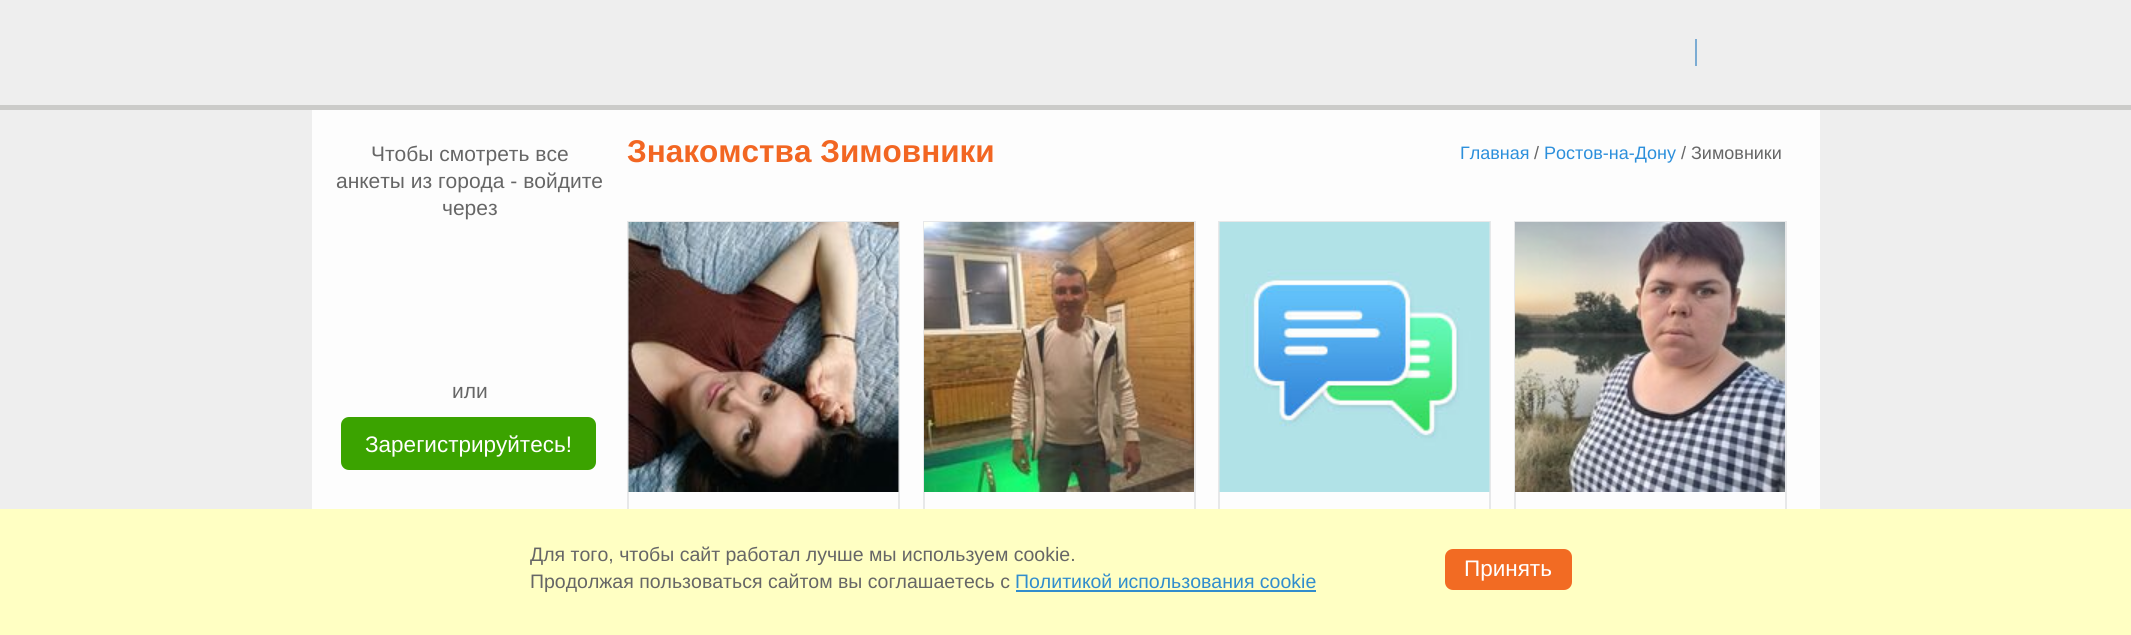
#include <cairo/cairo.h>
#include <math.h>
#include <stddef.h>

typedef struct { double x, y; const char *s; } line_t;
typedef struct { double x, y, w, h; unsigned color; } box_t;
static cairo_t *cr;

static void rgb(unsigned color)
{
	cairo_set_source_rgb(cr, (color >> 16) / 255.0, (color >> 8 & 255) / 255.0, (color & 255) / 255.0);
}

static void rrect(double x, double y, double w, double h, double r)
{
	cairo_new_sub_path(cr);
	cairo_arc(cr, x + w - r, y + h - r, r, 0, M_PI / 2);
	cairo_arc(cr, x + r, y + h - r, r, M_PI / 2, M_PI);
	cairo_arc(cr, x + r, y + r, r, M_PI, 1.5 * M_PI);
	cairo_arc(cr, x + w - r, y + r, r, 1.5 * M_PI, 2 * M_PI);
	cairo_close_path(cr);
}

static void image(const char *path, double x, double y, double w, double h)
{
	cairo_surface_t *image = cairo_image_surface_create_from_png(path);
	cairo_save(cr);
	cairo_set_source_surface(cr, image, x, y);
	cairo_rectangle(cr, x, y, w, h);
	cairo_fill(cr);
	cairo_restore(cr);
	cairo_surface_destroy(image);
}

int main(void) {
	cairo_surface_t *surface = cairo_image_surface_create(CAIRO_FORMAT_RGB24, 2131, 635);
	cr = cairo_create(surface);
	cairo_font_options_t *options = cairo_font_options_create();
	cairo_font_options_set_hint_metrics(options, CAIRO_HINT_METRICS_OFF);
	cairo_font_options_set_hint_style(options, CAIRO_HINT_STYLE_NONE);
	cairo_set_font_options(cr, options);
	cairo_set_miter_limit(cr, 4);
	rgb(0xeeeeee);
	cairo_paint(cr);
	{
		static const box_t items[] = {
			{0, 105, 2131, 5, 0xcbcbc9},
			{1695, 39, 2, 27, 0x7cacd3},
			{312, 110, 1508, 399, 0xfdfdfd},
		};
		for (size_t i = 0; i < sizeof items / sizeof *items; i++) {
			rgb(items[i].color);
			cairo_rectangle(cr, items[i].x, items[i].y, items[i].w, items[i].h);
			cairo_fill(cr);
		}
	}
	rgb(0x3ba300);
	rrect(341, 417, 255, 53, 8);
	cairo_fill(cr);
	cairo_rectangle(cr, 628, 222, 271, 353);
	rgb(0xe7e8e9);
	cairo_stroke(cr);
	image("img/1.png", 628, 222, 271, 270);
	cairo_rectangle(cr, 924, 222, 271, 353);
	cairo_stroke(cr);
	image("img/2.png", 924, 222, 270, 270);
	cairo_rectangle(cr, 1219, 222, 271, 353);
	cairo_stroke(cr);
	image("img/3.png", 1219, 222, 271, 270);
	cairo_rectangle(cr, 1515, 222, 271, 353);
	cairo_stroke(cr);
	image("img/4.png", 1515, 222, 270, 270);
	rgb(0xffffc3);
	cairo_rectangle(cr, 0, 509, 2131, 126);
	cairo_fill(cr);
	rgb(0x318dcd);
	cairo_rectangle(cr, 1016, 590, 300, 2);
	cairo_fill(cr);
	rgb(0xf26b23);
	rrect(1445, 549, 127, 41, 8);
	cairo_fill(cr);
	cairo_select_font_face(cr, "Liberation Sans", CAIRO_FONT_SLANT_NORMAL, CAIRO_FONT_WEIGHT_NORMAL);
	cairo_set_font_size(cr, 21);
	rgb(0x666666);
	{
		static const line_t items[] = {
			{371, 161, "Чтобы смотреть все"},
			{336, 188, "анкеты из города - войдите"},
			{442, 215, "через"},
			{452, 398, "или"},
		};
		for (size_t i = 0; i < sizeof items / sizeof *items; i++) {
			cairo_move_to(cr, items[i].x, items[i].y);
			cairo_show_text(cr, items[i].s);
		}
	}
	cairo_set_font_size(cr, 22.5);
	rgb(0xffffff);
	cairo_move_to(cr, 365, 452);
	cairo_show_text(cr, "Зарегистрируйтесь!");
	cairo_select_font_face(cr, "Liberation Sans", CAIRO_FONT_SLANT_NORMAL, CAIRO_FONT_WEIGHT_BOLD);
	cairo_set_font_size(cr, 31.5);
	rgb(0xf26622);
	cairo_move_to(cr, 627, 162);
	cairo_show_text(cr, "Знакомства Зимовники");
	cairo_select_font_face(cr, "Liberation Sans", CAIRO_FONT_SLANT_NORMAL, CAIRO_FONT_WEIGHT_NORMAL);
	cairo_set_font_size(cr, 18);
	rgb(0x2c8fdb);
	cairo_move_to(cr, 1460, 159);
	cairo_show_text(cr, "Главная");
	rgb(0x666666);
	cairo_move_to(cr, 1534, 159);
	cairo_show_text(cr, "/");
	rgb(0x2c8fdb);
	cairo_move_to(cr, 1544, 159);
	cairo_show_text(cr, "Ростов-на-Дону");
	rgb(0x666666);
	cairo_move_to(cr, 1681, 159);
	cairo_show_text(cr, "/ Зимовники");
	cairo_set_font_size(cr, 19.5);
	cairo_move_to(cr, 530, 561);
	cairo_show_text(cr, "Для того, чтобы сайт работал лучше мы используем cookie.");
	cairo_move_to(cr, 530, 588);
	cairo_show_text(cr, "Продолжая пользоваться сайтом вы соглашаетесь с");
	rgb(0x318dcd);
	cairo_move_to(cr, 1015, 588);
	cairo_show_text(cr, "Политикой использования cookie");
	cairo_set_font_size(cr, 22.5);
	rgb(0xffffff);
	cairo_move_to(cr, 1464, 576);
	cairo_show_text(cr, "Принять");
	cairo_surface_write_to_png(surface, "page.png");
	cairo_font_options_destroy(options);
	cairo_destroy(cr);
	cairo_surface_destroy(surface);
	return 0;
}
